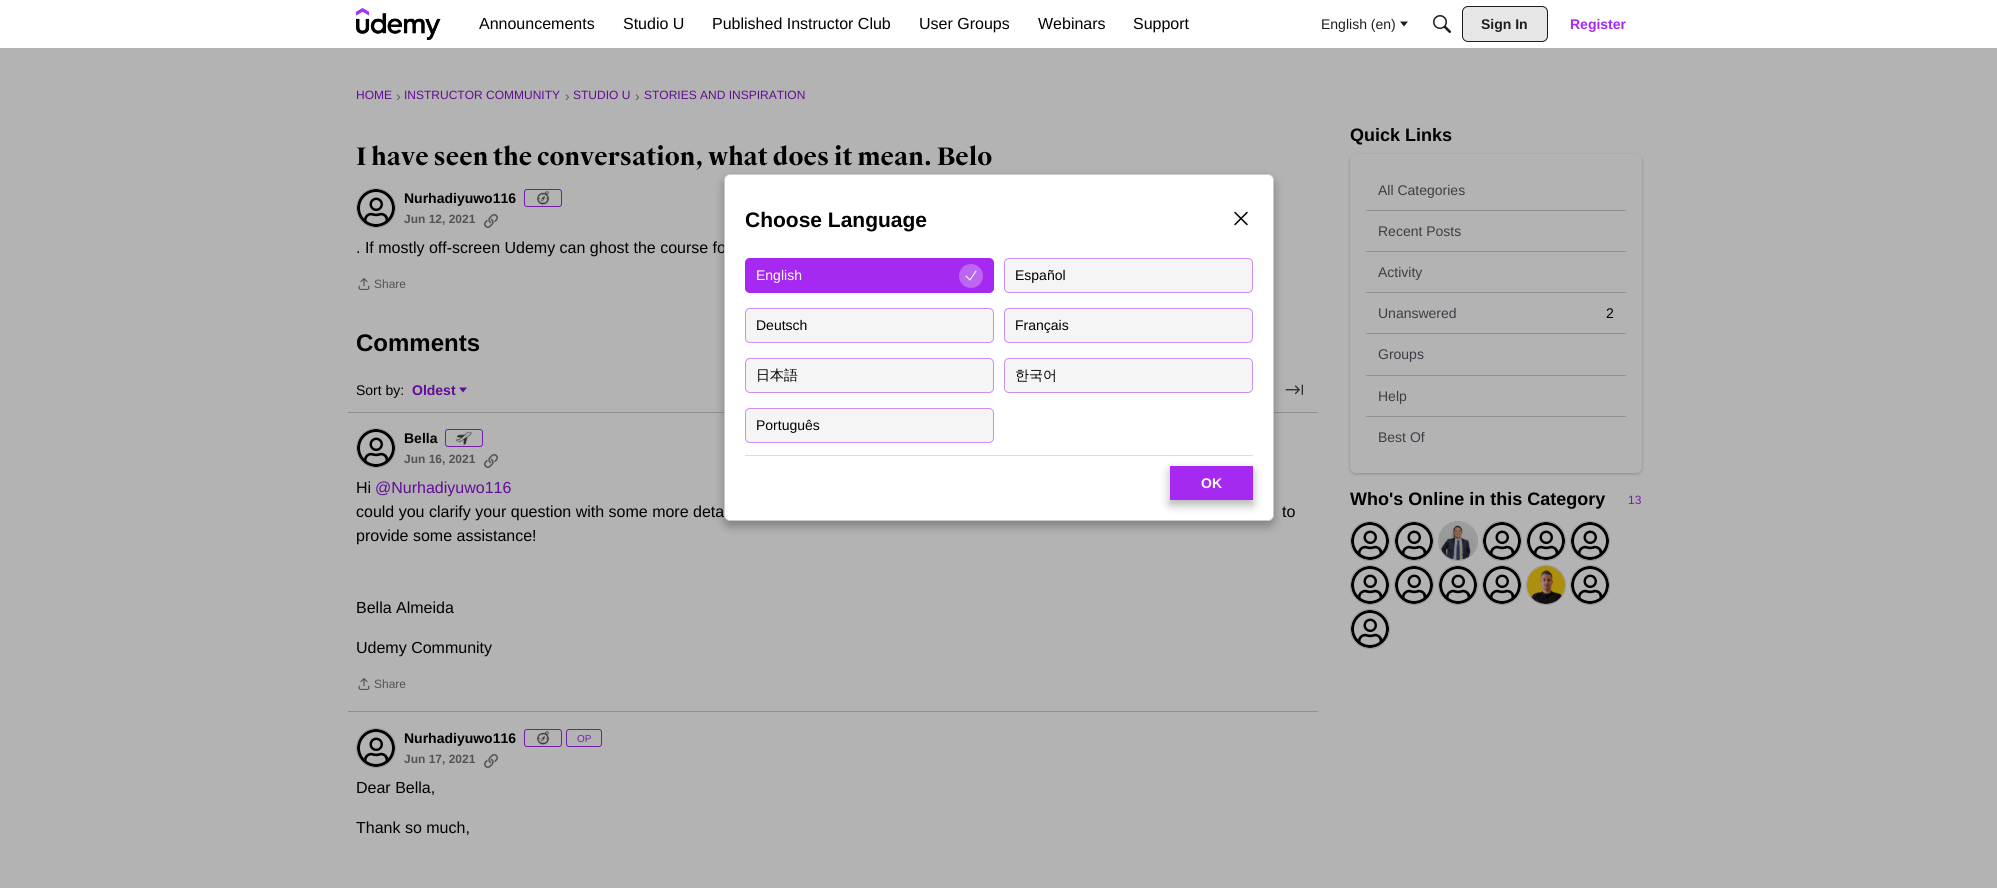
#include <cairo/cairo.h>
#include <math.h>
#include <stddef.h>

typedef struct { double x, y; const char *s; } line_t;
typedef struct { double x, y, w, h; unsigned color; } box_t;
static cairo_t *cr;

static void rgb(unsigned color)
{
	cairo_set_source_rgb(cr, (color >> 16) / 255.0, (color >> 8 & 255) / 255.0, (color & 255) / 255.0);
}

static void rrect(double x, double y, double w, double h, double r)
{
	cairo_new_sub_path(cr);
	cairo_arc(cr, x + w - r, y + h - r, r, 0, M_PI / 2);
	cairo_arc(cr, x + r, y + h - r, r, M_PI / 2, M_PI);
	cairo_arc(cr, x + r, y + r, r, M_PI, 1.5 * M_PI);
	cairo_arc(cr, x + w - r, y + r, r, 1.5 * M_PI, 2 * M_PI);
	cairo_close_path(cr);
}

static void soft_shadow(double x, double y, double w, double h, double r, double blur, double alpha)
{
	cairo_push_group_with_content(cr, CAIRO_CONTENT_ALPHA);
	cairo_set_operator(cr, CAIRO_OPERATOR_SOURCE);
	for (int i = 15; i >= -15 && fmin(w, h) + blur * i / 3 > 0; i -= 2) {
		double e = blur * i / 6;
		cairo_set_source_rgba(cr, 0, 0, 0, alpha * erfc((i - 1) / 8.5) / 2);
		rrect(x - e, y - e, w + 2 * e, h + 2 * e, fmax(0, fmin(r + e + blur * .6, fmin(w, h) / 2 + e)));
		cairo_fill(cr);
	}
	cairo_pattern_t *soft = cairo_pop_group(cr);
	cairo_mask(cr, soft);
	cairo_pattern_destroy(soft);
}

static void image(const char *path, double x, double y, double w, double h)
{
	cairo_surface_t *image = cairo_image_surface_create_from_png(path);
	cairo_save(cr);
	cairo_set_source_surface(cr, image, x, y);
	cairo_rectangle(cr, x, y, w, h);
	cairo_fill(cr);
	cairo_restore(cr);
	cairo_surface_destroy(image);
}

int main(void) {
	cairo_surface_t *surface = cairo_image_surface_create(CAIRO_FORMAT_RGB24, 1997, 888);
	cr = cairo_create(surface);
	cairo_font_options_t *options = cairo_font_options_create();
	cairo_font_options_set_hint_metrics(options, CAIRO_HINT_METRICS_OFF);
	cairo_font_options_set_hint_style(options, CAIRO_HINT_STYLE_NONE);
	cairo_set_font_options(cr, options);
	cairo_set_miter_limit(cr, 4);
	rgb(0xb3b3b3);
	cairo_paint(cr);
	rgb(0xffffff);
	cairo_rectangle(cr, 0, 0, 1997, 48);
	cairo_fill(cr);
	image("img/1.png", 356, 8, 85, 32);
	rgb(0x1c1d1f);
	cairo_new_path(cr);
	cairo_move_to(cr, 1400, 21.5);
	cairo_line_to(cr, 1408, 21.5);
	cairo_line_to(cr, 1404, 26.5);
	cairo_close_path(cr);
	cairo_fill(cr);
	image("img/2.png", 1433, 15, 18, 18);
	rgb(0xe6e6e6);
	rrect(1462.5, 6.5, 85, 35, 5.5);
	cairo_fill_preserve(cr);
	rgb(0x1c1d1f);
	cairo_set_line_width(cr, 1);
	cairo_stroke(cr);
	cairo_arc(cr, 376, 208, 19.5, 0, 2 * M_PI);
	rgb(0x989898);
	cairo_stroke(cr);
	image("img/3.png", 357, 189, 38, 38);
	rrect(524.5, 189.5, 37, 17, 2.5);
	rgb(0x731da8);
	cairo_stroke(cr);
	image("img/4.png", 536, 191, 14, 14);
	image("img/5.png", 484, 214, 14, 14);
	image("img/6.png", 358, 278, 12, 12);
	rgb(0x610b96);
	cairo_new_path(cr);
	cairo_move_to(cr, 459, 387.5);
	cairo_line_to(cr, 467, 387.5);
	cairo_line_to(cr, 463, 392.5);
	cairo_close_path(cr);
	cairo_fill(cr);
	image("img/7.png", 1285, 384, 18, 11);
	rgb(0x8f8f8f);
	cairo_rectangle(cr, 348, 412, 970, 1);
	cairo_fill(cr);
	cairo_arc(cr, 376, 448, 19.5, 0, 2 * M_PI);
	rgb(0x989898);
	cairo_stroke(cr);
	image("img/3.png", 357, 429, 38, 38);
	rrect(445.5, 429.5, 37, 17, 2.5);
	rgb(0x731da8);
	cairo_stroke(cr);
	image("img/8.png", 456, 431, 16, 14);
	image("img/5.png", 484, 454, 14, 14);
	image("img/6.png", 358, 678, 12, 12);
	rgb(0x8f8f8f);
	cairo_rectangle(cr, 348, 711, 970, 1);
	cairo_fill(cr);
	cairo_arc(cr, 376, 748, 19.5, 0, 2 * M_PI);
	rgb(0x989898);
	cairo_stroke(cr);
	image("img/3.png", 357, 729, 38, 38);
	rrect(524.5, 729.5, 37, 17, 2.5);
	rgb(0x731da8);
	cairo_stroke(cr);
	image("img/4.png", 536, 731, 14, 14);
	rrect(566.5, 729.5, 35, 17, 2.5);
	cairo_stroke(cr);
	image("img/5.png", 484, 754, 14, 14);
	rgb(0x000000);
	soft_shadow(1350, 155, 292, 319, 6, 1.5, 0.22);
	rgb(0xb3b3b3);
	rrect(1350, 154, 292, 319, 6);
	cairo_fill(cr);
	{
		static const box_t items[] = {
			{1366, 210, 260, 1, 0x8f8f8f},
			{1366, 251, 260, 1, 0x8f8f8f},
			{1366, 292, 260, 1, 0x8f8f8f},
			{1366, 333, 260, 1, 0x8f8f8f},
			{1366, 375, 260, 1, 0x8f8f8f},
			{1366, 416, 260, 1, 0x8f8f8f},
		};
		for (size_t i = 0; i < sizeof items / sizeof *items; i++) {
			rgb(items[i].color);
			cairo_rectangle(cr, items[i].x, items[i].y, items[i].w, items[i].h);
			cairo_fill(cr);
		}
	}
	cairo_arc(cr, 1370, 541, 19.5, 0, 2 * M_PI);
	rgb(0x989898);
	cairo_stroke(cr);
	image("img/3.png", 1351, 522, 38, 38);
	cairo_arc(cr, 1414, 541, 19.5, 0, 2 * M_PI);
	cairo_stroke(cr);
	image("img/3.png", 1395, 522, 38, 38);
	cairo_arc(cr, 1458, 541, 19.5, 0, 2 * M_PI);
	cairo_stroke(cr);
	image("img/9.png", 1439, 522, 38, 38);
	cairo_arc(cr, 1502, 541, 19.5, 0, 2 * M_PI);
	cairo_stroke(cr);
	image("img/3.png", 1483, 522, 38, 38);
	cairo_arc(cr, 1546, 541, 19.5, 0, 2 * M_PI);
	cairo_stroke(cr);
	image("img/3.png", 1527, 522, 38, 38);
	cairo_arc(cr, 1590, 541, 19.5, 0, 2 * M_PI);
	cairo_stroke(cr);
	image("img/3.png", 1571, 522, 38, 38);
	cairo_arc(cr, 1370, 585, 19.5, 0, 2 * M_PI);
	cairo_stroke(cr);
	image("img/3.png", 1351, 566, 38, 38);
	cairo_arc(cr, 1414, 585, 19.5, 0, 2 * M_PI);
	cairo_stroke(cr);
	image("img/3.png", 1395, 566, 38, 38);
	cairo_arc(cr, 1458, 585, 19.5, 0, 2 * M_PI);
	cairo_stroke(cr);
	image("img/3.png", 1439, 566, 38, 38);
	cairo_arc(cr, 1502, 585, 19.5, 0, 2 * M_PI);
	cairo_stroke(cr);
	image("img/3.png", 1483, 566, 38, 38);
	cairo_arc(cr, 1546, 585, 19.5, 0, 2 * M_PI);
	cairo_stroke(cr);
	image("img/10.png", 1527, 566, 38, 38);
	cairo_arc(cr, 1590, 585, 19.5, 0, 2 * M_PI);
	cairo_stroke(cr);
	image("img/3.png", 1571, 566, 38, 38);
	cairo_arc(cr, 1370, 629, 19.5, 0, 2 * M_PI);
	cairo_stroke(cr);
	image("img/3.png", 1351, 610, 38, 38);
	rgb(0x000000);
	soft_shadow(724, 179, 550, 347, 6, 5, 0.3);
	cairo_select_font_face(cr, "Liberation Sans", CAIRO_FONT_SLANT_NORMAL, CAIRO_FONT_WEIGHT_NORMAL);
	cairo_set_font_size(cr, 16);
	rgb(0x000000);
	{
		static const line_t items[] = {
			{479, 29, "Announcements"},
			{623, 29, "Studio U"},
			{712, 29, "Published Instructor Club"},
			{919, 29, "User Groups"},
			{1038, 29, "Webinars"},
			{1133, 29, "Support"},
		};
		for (size_t i = 0; i < sizeof items / sizeof *items; i++) {
			cairo_move_to(cr, items[i].x, items[i].y);
			cairo_show_text(cr, items[i].s);
		}
	}
	cairo_set_font_size(cr, 14);
	rgb(0x1c1d1f);
	cairo_move_to(cr, 1321, 29);
	cairo_show_text(cr, "English (en)");
	cairo_select_font_face(cr, "Liberation Sans", CAIRO_FONT_SLANT_NORMAL, CAIRO_FONT_WEIGHT_BOLD);
	cairo_move_to(cr, 1481, 29);
	cairo_show_text(cr, "Sign In");
	rgb(0xa529f0);
	cairo_move_to(cr, 1570, 29);
	cairo_show_text(cr, "Register");
	cairo_select_font_face(cr, "Liberation Sans", CAIRO_FONT_SLANT_NORMAL, CAIRO_FONT_WEIGHT_NORMAL);
	cairo_set_font_size(cr, 12);
	rgb(0x610b96);
	cairo_move_to(cr, 356, 99);
	cairo_show_text(cr, "HOME");
	cairo_set_font_size(cr, 14);
	rgb(0x5a5a5a);
	cairo_move_to(cr, 396, 101);
	cairo_show_text(cr, "›");
	cairo_set_font_size(cr, 12);
	rgb(0x610b96);
	cairo_move_to(cr, 404, 99);
	cairo_show_text(cr, "INSTRUCTOR COMMUNITY");
	cairo_set_font_size(cr, 14);
	rgb(0x5a5a5a);
	cairo_move_to(cr, 565, 101);
	cairo_show_text(cr, "›");
	cairo_set_font_size(cr, 12);
	rgb(0x610b96);
	cairo_move_to(cr, 573, 99);
	cairo_show_text(cr, "STUDIO U");
	cairo_set_font_size(cr, 14);
	rgb(0x5a5a5a);
	cairo_move_to(cr, 635, 101);
	cairo_show_text(cr, "›");
	cairo_set_font_size(cr, 12);
	rgb(0x610b96);
	cairo_move_to(cr, 644, 99);
	cairo_show_text(cr, "STORIES AND INSPIRATION");
	cairo_select_font_face(cr, "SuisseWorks", CAIRO_FONT_SLANT_NORMAL, CAIRO_FONT_WEIGHT_BOLD);
	cairo_set_font_size(cr, 24);
	rgb(0x000000);
	cairo_move_to(cr, 356, 165);
	cairo_show_text(cr, "I have seen the conversation, what does it mean. Belo");
	cairo_select_font_face(cr, "Liberation Sans", CAIRO_FONT_SLANT_NORMAL, CAIRO_FONT_WEIGHT_BOLD);
	cairo_set_font_size(cr, 14);
	cairo_move_to(cr, 404, 203);
	cairo_show_text(cr, "Nurhadiyuwo116");
	cairo_set_font_size(cr, 12);
	rgb(0x535353);
	cairo_move_to(cr, 404, 223);
	cairo_show_text(cr, "Jun 12, 2021");
	cairo_select_font_face(cr, "Liberation Sans", CAIRO_FONT_SLANT_NORMAL, CAIRO_FONT_WEIGHT_NORMAL);
	cairo_set_font_size(cr, 16);
	rgb(0x000000);
	cairo_move_to(cr, 356, 253);
	cairo_show_text(cr, ". If mostly off-screen Udemy can ghost the course fo");
	cairo_set_font_size(cr, 12);
	rgb(0x535353);
	cairo_move_to(cr, 374, 288);
	cairo_show_text(cr, "Share");
	cairo_select_font_face(cr, "Liberation Sans", CAIRO_FONT_SLANT_NORMAL, CAIRO_FONT_WEIGHT_BOLD);
	cairo_set_font_size(cr, 24);
	rgb(0x000000);
	cairo_move_to(cr, 356, 351);
	cairo_show_text(cr, "Comments");
	cairo_select_font_face(cr, "Liberation Sans", CAIRO_FONT_SLANT_NORMAL, CAIRO_FONT_WEIGHT_NORMAL);
	cairo_set_font_size(cr, 14);
	cairo_move_to(cr, 356, 395);
	cairo_show_text(cr, "Sort by:");
	cairo_select_font_face(cr, "Liberation Sans", CAIRO_FONT_SLANT_NORMAL, CAIRO_FONT_WEIGHT_BOLD);
	rgb(0x610b96);
	cairo_move_to(cr, 412, 395);
	cairo_show_text(cr, "Oldest");
	rgb(0x000000);
	cairo_move_to(cr, 404, 443);
	cairo_show_text(cr, "Bella");
	cairo_set_font_size(cr, 12);
	rgb(0x535353);
	cairo_move_to(cr, 404, 463);
	cairo_show_text(cr, "Jun 16, 2021");
	cairo_select_font_face(cr, "Liberation Sans", CAIRO_FONT_SLANT_NORMAL, CAIRO_FONT_WEIGHT_NORMAL);
	cairo_set_font_size(cr, 16);
	rgb(0x000000);
	cairo_move_to(cr, 356, 493);
	cairo_show_text(cr, "Hi");
	rgb(0x610b96);
	cairo_move_to(cr, 375, 493);
	cairo_show_text(cr, "@Nurhadiyuwo116");
	rgb(0x000000);
	{
		static const line_t items[] = {
			{356, 517, "could you clarify your question with some more deta"},
			{1282, 517, "to"},
			{356, 541, "provide some assistance!"},
			{356, 613, "Bella Almeida"},
			{356, 653, "Udemy Community"},
		};
		for (size_t i = 0; i < sizeof items / sizeof *items; i++) {
			cairo_move_to(cr, items[i].x, items[i].y);
			cairo_show_text(cr, items[i].s);
		}
	}
	cairo_set_font_size(cr, 12);
	rgb(0x535353);
	cairo_move_to(cr, 374, 688);
	cairo_show_text(cr, "Share");
	cairo_select_font_face(cr, "Liberation Sans", CAIRO_FONT_SLANT_NORMAL, CAIRO_FONT_WEIGHT_BOLD);
	cairo_set_font_size(cr, 14);
	rgb(0x000000);
	cairo_move_to(cr, 404, 743);
	cairo_show_text(cr, "Nurhadiyuwo116");
	cairo_select_font_face(cr, "Liberation Sans", CAIRO_FONT_SLANT_NORMAL, CAIRO_FONT_WEIGHT_NORMAL);
	cairo_set_font_size(cr, 10);
	rgb(0x731da8);
	cairo_move_to(cr, 577, 742);
	cairo_show_text(cr, "OP");
	cairo_select_font_face(cr, "Liberation Sans", CAIRO_FONT_SLANT_NORMAL, CAIRO_FONT_WEIGHT_BOLD);
	cairo_set_font_size(cr, 12);
	rgb(0x535353);
	cairo_move_to(cr, 404, 763);
	cairo_show_text(cr, "Jun 17, 2021");
	cairo_select_font_face(cr, "Liberation Sans", CAIRO_FONT_SLANT_NORMAL, CAIRO_FONT_WEIGHT_NORMAL);
	cairo_set_font_size(cr, 16);
	rgb(0x000000);
	cairo_move_to(cr, 356, 793);
	cairo_show_text(cr, "Dear Bella,");
	cairo_move_to(cr, 356, 833);
	cairo_show_text(cr, "Thank so much,");
	cairo_select_font_face(cr, "Liberation Sans", CAIRO_FONT_SLANT_NORMAL, CAIRO_FONT_WEIGHT_BOLD);
	cairo_set_font_size(cr, 18);
	cairo_move_to(cr, 1350, 141);
	cairo_show_text(cr, "Quick Links");
	cairo_select_font_face(cr, "Liberation Sans", CAIRO_FONT_SLANT_NORMAL, CAIRO_FONT_WEIGHT_NORMAL);
	cairo_set_font_size(cr, 14);
	rgb(0x3b3f45);
	{
		static const line_t items[] = {
			{1378, 195, "All Categories"},
			{1378, 236, "Recent Posts"},
			{1378, 277, "Activity"},
			{1378, 318, "Unanswered"},
		};
		for (size_t i = 0; i < sizeof items / sizeof *items; i++) {
			cairo_move_to(cr, items[i].x, items[i].y);
			cairo_show_text(cr, items[i].s);
		}
	}
	rgb(0x000000);
	cairo_move_to(cr, 1606, 318);
	cairo_show_text(cr, "2");
	rgb(0x3b3f45);
	{
		static const line_t items[] = {
			{1378, 359, "Groups"},
			{1378, 401, "Help"},
			{1378, 442, "Best Of"},
		};
		for (size_t i = 0; i < sizeof items / sizeof *items; i++) {
			cairo_move_to(cr, items[i].x, items[i].y);
			cairo_show_text(cr, items[i].s);
		}
	}
	cairo_select_font_face(cr, "Liberation Sans", CAIRO_FONT_SLANT_NORMAL, CAIRO_FONT_WEIGHT_BOLD);
	cairo_set_font_size(cr, 18);
	rgb(0x000000);
	cairo_move_to(cr, 1350, 505);
	cairo_show_text(cr, "Who's Online in this Category");
	cairo_select_font_face(cr, "Liberation Sans", CAIRO_FONT_SLANT_NORMAL, CAIRO_FONT_WEIGHT_NORMAL);
	cairo_set_font_size(cr, 12);
	rgb(0x731da8);
	cairo_move_to(cr, 1628, 504);
	cairo_show_text(cr, "13");
	rgb(0xffffff);
	rrect(724.5, 174.5, 549, 346, 5.5);
	cairo_fill_preserve(cr);
	rgb(0xcccccc);
	cairo_stroke(cr);
	cairo_select_font_face(cr, "Liberation Sans", CAIRO_FONT_SLANT_NORMAL, CAIRO_FONT_WEIGHT_BOLD);
	cairo_set_font_size(cr, 21);
	rgb(0x000000);
	cairo_move_to(cr, 745, 227);
	cairo_show_text(cr, "Choose Language");
	cairo_new_path(cr);
	cairo_move_to(cr, 1235, 224.5);
	cairo_line_to(cr, 1247, 212.5);
	cairo_move_to(cr, 1235, 212.5);
	cairo_line_to(cr, 1247, 224.5);
	cairo_set_line_width(cr, 1.5);
	cairo_set_line_cap(cr, CAIRO_LINE_CAP_ROUND);
	cairo_set_line_join(cr, CAIRO_LINE_JOIN_ROUND);
	cairo_stroke(cr);
	rgb(0xa529f0);
	rrect(745, 258, 249, 35, 5);
	cairo_fill(cr);
	rrect(745.5, 258.5, 248, 34, 4.5);
	cairo_set_source_rgba(cr, 0.647, 0.161, 0.941, 0.5);
	cairo_set_line_width(cr, 1);
	cairo_set_line_cap(cr, CAIRO_LINE_CAP_BUTT);
	cairo_set_line_join(cr, CAIRO_LINE_JOIN_MITER);
	cairo_stroke(cr);
	cairo_select_font_face(cr, "Liberation Sans", CAIRO_FONT_SLANT_NORMAL, CAIRO_FONT_WEIGHT_NORMAL);
	cairo_set_font_size(cr, 14);
	rgb(0xffffff);
	cairo_move_to(cr, 756, 280);
	cairo_show_text(cr, "English");
	rgb(0xbc66f1);
	cairo_new_path(cr);
	cairo_arc(cr, 971, 276, 12, 0, 2 * M_PI);
	cairo_fill(cr);
	cairo_new_path(cr);
	cairo_move_to(cr, 966, 276);
	cairo_line_to(cr, 970, 280);
	cairo_line_to(cr, 976, 271);
	rgb(0xffffff);
	cairo_set_line_cap(cr, CAIRO_LINE_CAP_ROUND);
	cairo_set_line_join(cr, CAIRO_LINE_JOIN_ROUND);
	cairo_stroke(cr);
	rgb(0xf5f5f6);
	rrect(1004, 258, 249, 35, 5);
	cairo_fill(cr);
	rrect(1004.5, 258.5, 248, 34, 4.5);
	cairo_set_source_rgba(cr, 0.647, 0.161, 0.941, 0.5);
	cairo_set_line_cap(cr, CAIRO_LINE_CAP_BUTT);
	cairo_set_line_join(cr, CAIRO_LINE_JOIN_MITER);
	cairo_stroke(cr);
	rgb(0x000000);
	cairo_move_to(cr, 1015, 280);
	cairo_show_text(cr, "Español");
	rgb(0xf5f5f6);
	rrect(745, 308, 249, 35, 5);
	cairo_fill(cr);
	rrect(745.5, 308.5, 248, 34, 4.5);
	cairo_set_source_rgba(cr, 0.647, 0.161, 0.941, 0.5);
	cairo_stroke(cr);
	rgb(0x000000);
	cairo_move_to(cr, 756, 330);
	cairo_show_text(cr, "Deutsch");
	rgb(0xf5f5f6);
	rrect(1004, 308, 249, 35, 5);
	cairo_fill(cr);
	rrect(1004.5, 308.5, 248, 34, 4.5);
	cairo_set_source_rgba(cr, 0.647, 0.161, 0.941, 0.5);
	cairo_stroke(cr);
	rgb(0x000000);
	cairo_move_to(cr, 1015, 330);
	cairo_show_text(cr, "Français");
	rgb(0xf5f5f6);
	rrect(745, 358, 249, 35, 5);
	cairo_fill(cr);
	rrect(745.5, 358.5, 248, 34, 4.5);
	cairo_set_source_rgba(cr, 0.647, 0.161, 0.941, 0.5);
	cairo_stroke(cr);
	cairo_select_font_face(cr, "WenQuanYi Zen Hei Medium", CAIRO_FONT_SLANT_NORMAL, CAIRO_FONT_WEIGHT_NORMAL);
	rgb(0x000000);
	cairo_move_to(cr, 756, 380);
	cairo_show_text(cr, "日本語");
	rgb(0xf5f5f6);
	rrect(1004, 358, 249, 35, 5);
	cairo_fill(cr);
	rrect(1004.5, 358.5, 248, 34, 4.5);
	cairo_set_source_rgba(cr, 0.647, 0.161, 0.941, 0.5);
	cairo_stroke(cr);
	rgb(0x000000);
	cairo_move_to(cr, 1015, 380);
	cairo_show_text(cr, "한국어");
	rgb(0xf5f5f6);
	rrect(745, 408, 249, 35, 5);
	cairo_fill(cr);
	rrect(745.5, 408.5, 248, 34, 4.5);
	cairo_set_source_rgba(cr, 0.647, 0.161, 0.941, 0.5);
	cairo_stroke(cr);
	cairo_select_font_face(cr, "Liberation Sans", CAIRO_FONT_SLANT_NORMAL, CAIRO_FONT_WEIGHT_NORMAL);
	rgb(0x000000);
	cairo_move_to(cr, 756, 430);
	cairo_show_text(cr, "Português");
	rgb(0xdddddd);
	cairo_rectangle(cr, 745, 455, 508, 1);
	cairo_fill(cr);
	rgb(0x000000);
	soft_shadow(1170, 471, 83, 34, 0, 5, 0.3);
	rgb(0xa529f0);
	cairo_rectangle(cr, 1170, 466, 83, 34);
	cairo_fill(cr);
	cairo_select_font_face(cr, "Liberation Sans", CAIRO_FONT_SLANT_NORMAL, CAIRO_FONT_WEIGHT_BOLD);
	rgb(0xffffff);
	cairo_move_to(cr, 1201, 488);
	cairo_show_text(cr, "OK");
	cairo_surface_write_to_png(surface, "page.png");
	cairo_font_options_destroy(options);
	cairo_destroy(cr);
	cairo_surface_destroy(surface);
	return 0;
}
